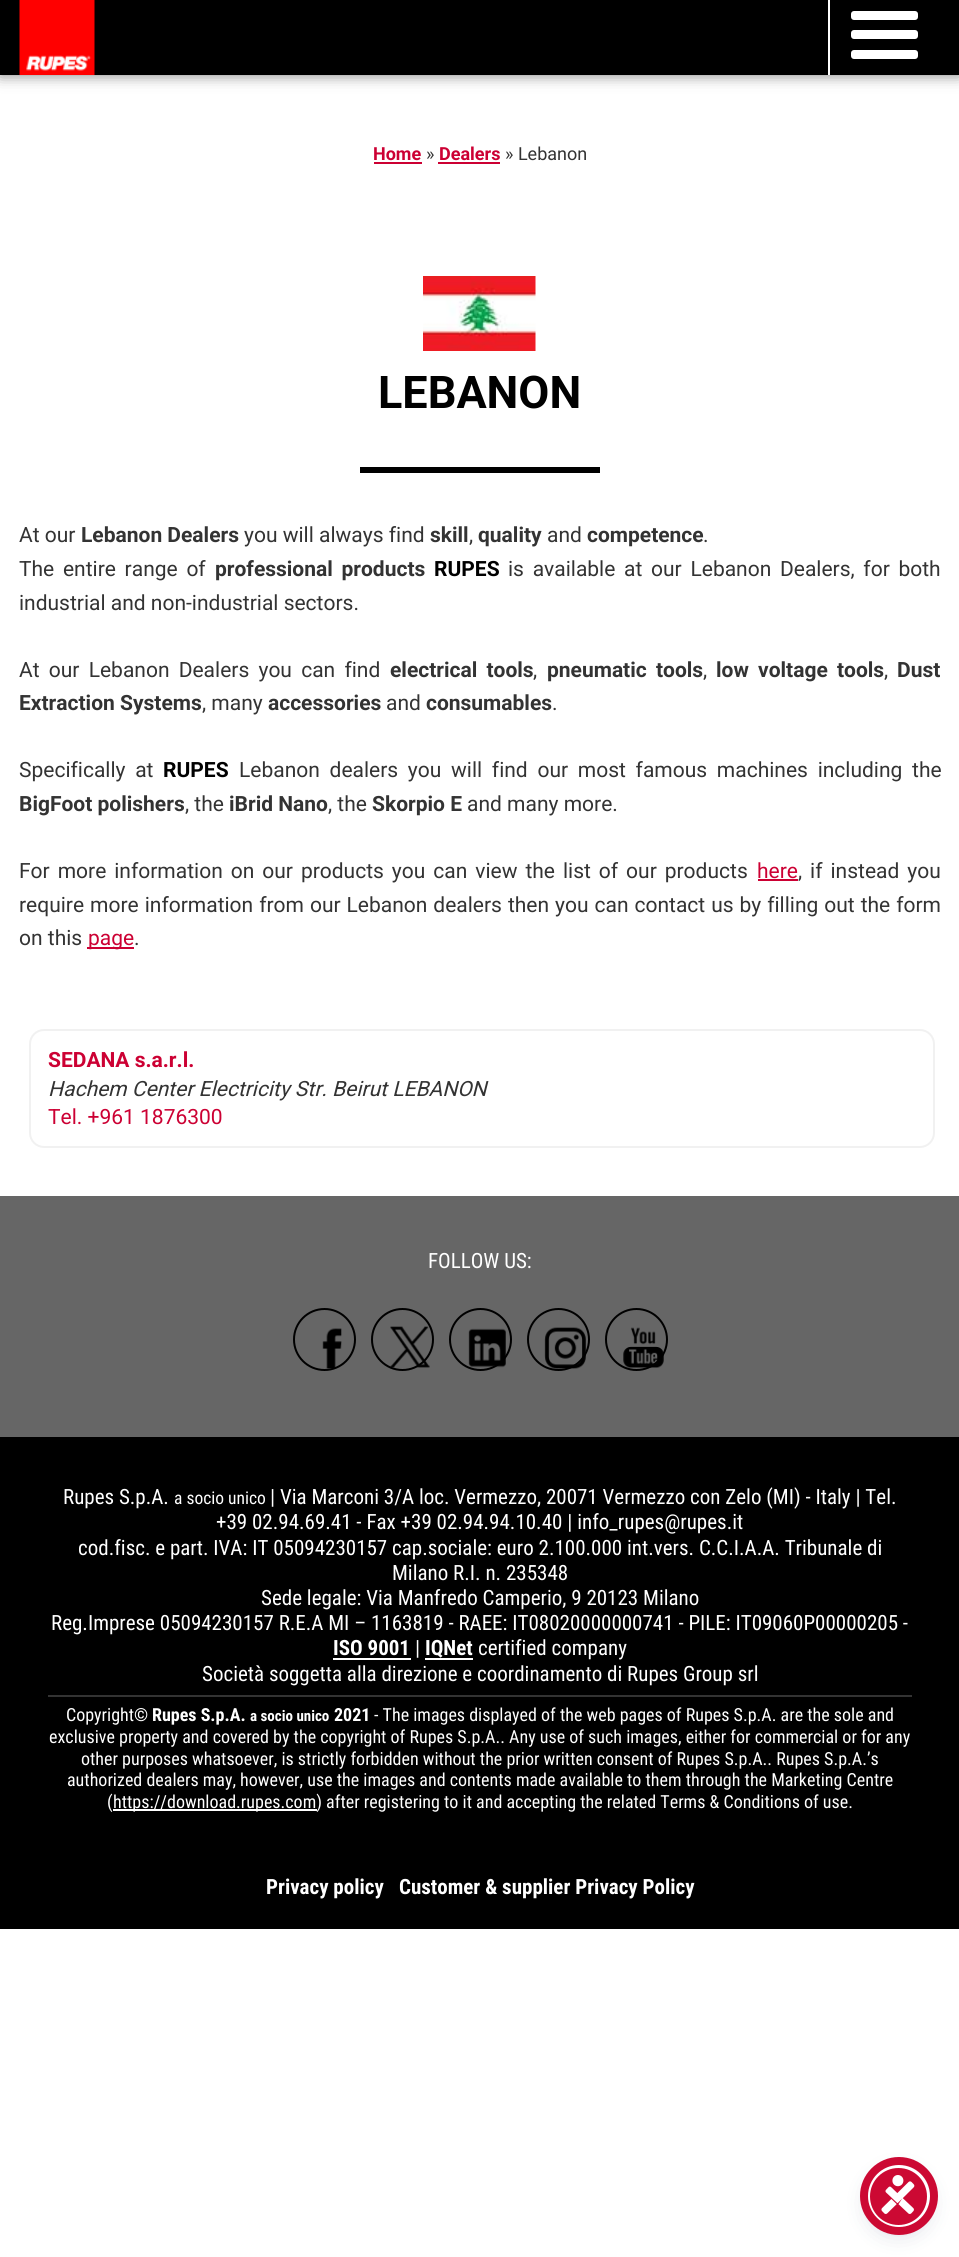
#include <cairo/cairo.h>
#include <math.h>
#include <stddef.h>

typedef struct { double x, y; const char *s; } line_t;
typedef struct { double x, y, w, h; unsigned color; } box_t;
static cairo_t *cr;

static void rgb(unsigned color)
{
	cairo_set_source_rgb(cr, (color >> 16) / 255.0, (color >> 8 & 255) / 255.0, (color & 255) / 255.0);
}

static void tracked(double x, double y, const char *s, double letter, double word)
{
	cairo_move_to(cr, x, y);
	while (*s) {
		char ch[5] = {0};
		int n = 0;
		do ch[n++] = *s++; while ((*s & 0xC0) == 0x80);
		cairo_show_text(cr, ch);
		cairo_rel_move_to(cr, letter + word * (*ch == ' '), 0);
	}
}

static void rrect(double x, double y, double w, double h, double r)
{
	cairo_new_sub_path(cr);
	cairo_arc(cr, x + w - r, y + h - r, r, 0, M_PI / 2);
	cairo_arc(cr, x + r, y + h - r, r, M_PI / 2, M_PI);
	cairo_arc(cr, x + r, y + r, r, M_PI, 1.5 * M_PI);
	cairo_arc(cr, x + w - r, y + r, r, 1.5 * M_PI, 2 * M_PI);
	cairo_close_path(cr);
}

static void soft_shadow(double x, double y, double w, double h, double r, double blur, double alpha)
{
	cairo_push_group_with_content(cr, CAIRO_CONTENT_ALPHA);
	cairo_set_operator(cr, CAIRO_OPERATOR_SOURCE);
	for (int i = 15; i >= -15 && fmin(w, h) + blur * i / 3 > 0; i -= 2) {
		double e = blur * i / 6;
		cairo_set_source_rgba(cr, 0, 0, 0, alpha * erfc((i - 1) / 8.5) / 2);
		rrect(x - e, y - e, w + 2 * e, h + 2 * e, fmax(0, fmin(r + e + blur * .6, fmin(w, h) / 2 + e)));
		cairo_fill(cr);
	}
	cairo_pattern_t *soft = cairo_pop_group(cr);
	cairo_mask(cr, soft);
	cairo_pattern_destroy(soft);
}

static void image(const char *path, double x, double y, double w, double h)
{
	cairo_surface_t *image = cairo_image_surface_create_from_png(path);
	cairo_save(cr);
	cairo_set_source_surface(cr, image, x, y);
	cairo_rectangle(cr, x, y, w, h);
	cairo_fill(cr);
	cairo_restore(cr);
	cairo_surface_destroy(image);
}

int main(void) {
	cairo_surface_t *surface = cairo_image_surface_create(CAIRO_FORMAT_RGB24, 959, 2257);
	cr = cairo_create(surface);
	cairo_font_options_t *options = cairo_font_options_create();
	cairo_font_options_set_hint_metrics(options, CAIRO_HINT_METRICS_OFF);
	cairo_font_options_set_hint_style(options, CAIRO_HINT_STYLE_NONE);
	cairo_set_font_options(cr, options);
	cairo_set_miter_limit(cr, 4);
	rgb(0xffffff);
	cairo_paint(cr);
	rgb(0x000000);
	soft_shadow(0, 0, 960, 75, 0, 7.5, 0.5);
	rgb(0x000000);
	cairo_rectangle(cr, 0, 0, 959, 75);
	cairo_fill(cr);
	image("img/1.png", 19, 0, 76, 75);
	rgb(0xffffff);
	cairo_rectangle(cr, 828, 0, 2, 75);
	cairo_fill(cr);
	rrect(851, 11, 67, 9, 3);
	cairo_fill(cr);
	rrect(851, 30, 67, 9, 3);
	cairo_fill(cr);
	rrect(851, 50, 67, 9, 3);
	cairo_fill(cr);
	{
		static const box_t items[] = {
			{374, 162, 48, 2, 0xcc0033},
			{438, 162, 62, 2, 0xcc0033},
			{360, 467, 240, 6, 0x000000},
		};
		for (size_t i = 0; i < sizeof items / sizeof *items; i++) {
			rgb(items[i].color);
			cairo_rectangle(cr, items[i].x, items[i].y, items[i].w, items[i].h);
			cairo_fill(cr);
		}
	}
	image("img/2.png", 423, 276, 113, 75);
	rgb(0xcc0033);
	cairo_rectangle(cr, 758, 879, 40, 2);
	cairo_fill(cr);
	cairo_rectangle(cr, 87, 947, 47, 2);
	cairo_fill(cr);
	rrect(30, 1030, 904, 117, 14);
	rgb(0xf1f1f1);
	cairo_stroke(cr);
	rgb(0x000000);
	cairo_rectangle(cr, 0, 1437, 959, 492);
	cairo_fill(cr);
	rgb(0x666666);
	cairo_rectangle(cr, 0, 1196, 959, 241);
	cairo_fill(cr);
	cairo_arc(cr, 324.5, 1339.5, 30.5, 0, 2 * M_PI);
	rgb(0x000000);
	cairo_stroke(cr);
	image("img/3.png", 322, 1328, 20, 41);
	cairo_arc(cr, 402.5, 1339.5, 30.5, 0, 2 * M_PI);
	cairo_stroke(cr);
	image("img/4.png", 390, 1326, 40, 42);
	cairo_arc(cr, 480.5, 1339.5, 30.5, 0, 2 * M_PI);
	cairo_stroke(cr);
	image("img/5.png", 468, 1328, 38, 40);
	cairo_arc(cr, 558.5, 1339.5, 30.5, 0, 2 * M_PI);
	cairo_stroke(cr);
	image("img/6.png", 544, 1327, 42, 42);
	cairo_arc(cr, 636.5, 1339.5, 30.5, 0, 2 * M_PI);
	cairo_stroke(cr);
	image("img/7.png", 623, 1327, 41, 41);
	{
		static const box_t items[] = {
			{333, 1658, 78, 2, 0xffffff},
			{425, 1658, 48, 2, 0xffffff},
			{48, 1695, 864, 2, 0x333333},
			{113, 1809, 204, 2, 0xffffff},
		};
		for (size_t i = 0; i < sizeof items / sizeof *items; i++) {
			rgb(items[i].color);
			cairo_rectangle(cr, items[i].x, items[i].y, items[i].w, items[i].h);
			cairo_fill(cr);
		}
	}
	rgb(0x5d6494);
	soft_shadow(867, 2168, 63, 63, 31.5, 3, 0.2);
	rgb(0x252c61);
	soft_shadow(867, 2172, 63, 63, 31.5, 11, 0.15);
	rgb(0xcc0933);
	cairo_arc(cr, 898.5, 2196.5, 30, 0, 2 * M_PI);
	cairo_fill_preserve(cr);
	rgb(0xffffff);
	cairo_set_line_width(cr, 3);
	cairo_stroke(cr);
	cairo_arc(cr, 899, 2196, 35, 0, 2 * M_PI);
	rgb(0xcc0933);
	cairo_set_line_width(cr, 8);
	cairo_stroke(cr);
	image("img/8.png", 881, 2175, 34, 39);
	cairo_select_font_face(cr, "Roboto", CAIRO_FONT_SLANT_NORMAL, CAIRO_FONT_WEIGHT_BOLD);
	cairo_set_font_size(cr, 18);
	rgb(0xcc0033);
	cairo_move_to(cr, 373, 160);
	cairo_show_text(cr, "Home");
	cairo_select_font_face(cr, "Roboto", CAIRO_FONT_SLANT_NORMAL, CAIRO_FONT_WEIGHT_NORMAL);
	rgb(0x333333);
	cairo_move_to(cr, 426, 160);
	cairo_show_text(cr, "»");
	cairo_select_font_face(cr, "Roboto", CAIRO_FONT_SLANT_NORMAL, CAIRO_FONT_WEIGHT_BOLD);
	rgb(0xcc0033);
	cairo_move_to(cr, 439, 160);
	cairo_show_text(cr, "Dealers");
	cairo_select_font_face(cr, "Roboto", CAIRO_FONT_SLANT_NORMAL, CAIRO_FONT_WEIGHT_NORMAL);
	rgb(0x333333);
	cairo_move_to(cr, 505, 160);
	cairo_show_text(cr, "» Lebanon");
	cairo_select_font_face(cr, "Roboto", CAIRO_FONT_SLANT_NORMAL, CAIRO_FONT_WEIGHT_BOLD);
	cairo_set_font_size(cr, 45);
	rgb(0x000000);
	cairo_move_to(cr, 378, 408);
	cairo_show_text(cr, "LEBANON");
	cairo_select_font_face(cr, "Roboto", CAIRO_FONT_SLANT_NORMAL, CAIRO_FONT_WEIGHT_NORMAL);
	cairo_set_font_size(cr, 21);
	rgb(0x333333);
	cairo_move_to(cr, 19, 542);
	cairo_show_text(cr, "At our");
	cairo_select_font_face(cr, "Roboto", CAIRO_FONT_SLANT_NORMAL, CAIRO_FONT_WEIGHT_BOLD);
	cairo_move_to(cr, 81, 542);
	cairo_show_text(cr, "Lebanon Dealers");
	cairo_select_font_face(cr, "Roboto", CAIRO_FONT_SLANT_NORMAL, CAIRO_FONT_WEIGHT_NORMAL);
	cairo_move_to(cr, 244, 542);
	cairo_show_text(cr, "you will always find");
	cairo_select_font_face(cr, "Roboto", CAIRO_FONT_SLANT_NORMAL, CAIRO_FONT_WEIGHT_BOLD);
	cairo_move_to(cr, 430, 542);
	cairo_show_text(cr, "skill");
	cairo_select_font_face(cr, "Roboto", CAIRO_FONT_SLANT_NORMAL, CAIRO_FONT_WEIGHT_NORMAL);
	cairo_move_to(cr, 469, 542);
	cairo_show_text(cr, ",");
	cairo_select_font_face(cr, "Roboto", CAIRO_FONT_SLANT_NORMAL, CAIRO_FONT_WEIGHT_BOLD);
	cairo_move_to(cr, 478, 542);
	cairo_show_text(cr, "quality");
	cairo_select_font_face(cr, "Roboto", CAIRO_FONT_SLANT_NORMAL, CAIRO_FONT_WEIGHT_NORMAL);
	cairo_move_to(cr, 547, 542);
	cairo_show_text(cr, "and");
	cairo_select_font_face(cr, "Roboto", CAIRO_FONT_SLANT_NORMAL, CAIRO_FONT_WEIGHT_BOLD);
	cairo_move_to(cr, 587, 542);
	cairo_show_text(cr, "competence");
	cairo_select_font_face(cr, "Roboto", CAIRO_FONT_SLANT_NORMAL, CAIRO_FONT_WEIGHT_NORMAL);
	cairo_move_to(cr, 703, 542);
	cairo_show_text(cr, ".");
	tracked(19, 576, "The entire range of", 0, 3.5);
	cairo_select_font_face(cr, "Roboto", CAIRO_FONT_SLANT_NORMAL, CAIRO_FONT_WEIGHT_BOLD);
	tracked(215, 576, "professional products", 0, 3.5);
	rgb(0x000000);
	cairo_move_to(cr, 434, 576);
	cairo_show_text(cr, "RUPES");
	cairo_select_font_face(cr, "Roboto", CAIRO_FONT_SLANT_NORMAL, CAIRO_FONT_WEIGHT_NORMAL);
	rgb(0x333333);
	tracked(508, 576, "is available at our Lebanon Dealers, for both", 0, 3.5);
	cairo_move_to(cr, 19, 610);
	cairo_show_text(cr, "industrial and non-industrial sectors.");
	tracked(19, 677, "At our Lebanon Dealers you can find", 0, 4);
	cairo_select_font_face(cr, "Roboto", CAIRO_FONT_SLANT_NORMAL, CAIRO_FONT_WEIGHT_BOLD);
	tracked(390, 677, "electrical tools", 0, 4);
	cairo_select_font_face(cr, "Roboto", CAIRO_FONT_SLANT_NORMAL, CAIRO_FONT_WEIGHT_NORMAL);
	cairo_move_to(cr, 533, 677);
	cairo_show_text(cr, ",");
	cairo_select_font_face(cr, "Roboto", CAIRO_FONT_SLANT_NORMAL, CAIRO_FONT_WEIGHT_BOLD);
	tracked(547, 677, "pneumatic tools", 0, 4);
	cairo_select_font_face(cr, "Roboto", CAIRO_FONT_SLANT_NORMAL, CAIRO_FONT_WEIGHT_NORMAL);
	cairo_move_to(cr, 703, 677);
	cairo_show_text(cr, ",");
	cairo_select_font_face(cr, "Roboto", CAIRO_FONT_SLANT_NORMAL, CAIRO_FONT_WEIGHT_BOLD);
	tracked(716, 677, "low voltage tools", 0, 4);
	cairo_select_font_face(cr, "Roboto", CAIRO_FONT_SLANT_NORMAL, CAIRO_FONT_WEIGHT_NORMAL);
	cairo_move_to(cr, 884, 677);
	cairo_show_text(cr, ",");
	cairo_select_font_face(cr, "Roboto", CAIRO_FONT_SLANT_NORMAL, CAIRO_FONT_WEIGHT_BOLD);
	cairo_move_to(cr, 897, 677);
	cairo_show_text(cr, "Dust");
	cairo_move_to(cr, 19, 710);
	cairo_show_text(cr, "Extraction Systems");
	cairo_select_font_face(cr, "Roboto", CAIRO_FONT_SLANT_NORMAL, CAIRO_FONT_WEIGHT_NORMAL);
	cairo_move_to(cr, 202, 710);
	cairo_show_text(cr, ", many");
	cairo_select_font_face(cr, "Roboto", CAIRO_FONT_SLANT_NORMAL, CAIRO_FONT_WEIGHT_BOLD);
	cairo_move_to(cr, 268, 710);
	cairo_show_text(cr, "accessories");
	cairo_select_font_face(cr, "Roboto", CAIRO_FONT_SLANT_NORMAL, CAIRO_FONT_WEIGHT_NORMAL);
	cairo_move_to(cr, 386, 710);
	cairo_show_text(cr, "and");
	cairo_select_font_face(cr, "Roboto", CAIRO_FONT_SLANT_NORMAL, CAIRO_FONT_WEIGHT_BOLD);
	cairo_move_to(cr, 426, 710);
	cairo_show_text(cr, "consumables");
	cairo_select_font_face(cr, "Roboto", CAIRO_FONT_SLANT_NORMAL, CAIRO_FONT_WEIGHT_NORMAL);
	cairo_move_to(cr, 552, 710);
	cairo_show_text(cr, ".");
	tracked(19, 777, "Specifically at", 0, 4.5);
	cairo_select_font_face(cr, "Roboto", CAIRO_FONT_SLANT_NORMAL, CAIRO_FONT_WEIGHT_BOLD);
	rgb(0x000000);
	cairo_move_to(cr, 163, 777);
	cairo_show_text(cr, "RUPES");
	cairo_select_font_face(cr, "Roboto", CAIRO_FONT_SLANT_NORMAL, CAIRO_FONT_WEIGHT_NORMAL);
	rgb(0x333333);
	tracked(239, 777, "Lebanon dealers you will find our most famous machines including the", 0, 4.5);
	cairo_select_font_face(cr, "Roboto", CAIRO_FONT_SLANT_NORMAL, CAIRO_FONT_WEIGHT_BOLD);
	cairo_move_to(cr, 19, 811);
	cairo_show_text(cr, "BigFoot polishers");
	cairo_select_font_face(cr, "Roboto", CAIRO_FONT_SLANT_NORMAL, CAIRO_FONT_WEIGHT_NORMAL);
	cairo_move_to(cr, 185, 811);
	cairo_show_text(cr, ", the");
	cairo_select_font_face(cr, "Roboto", CAIRO_FONT_SLANT_NORMAL, CAIRO_FONT_WEIGHT_BOLD);
	cairo_move_to(cr, 229, 811);
	cairo_show_text(cr, "iBrid Nano");
	cairo_select_font_face(cr, "Roboto", CAIRO_FONT_SLANT_NORMAL, CAIRO_FONT_WEIGHT_NORMAL);
	cairo_move_to(cr, 328, 811);
	cairo_show_text(cr, ", the");
	cairo_select_font_face(cr, "Roboto", CAIRO_FONT_SLANT_NORMAL, CAIRO_FONT_WEIGHT_BOLD);
	cairo_move_to(cr, 372, 811);
	cairo_show_text(cr, "Skorpio E");
	cairo_select_font_face(cr, "Roboto", CAIRO_FONT_SLANT_NORMAL, CAIRO_FONT_WEIGHT_NORMAL);
	cairo_move_to(cr, 467, 811);
	cairo_show_text(cr, "and many more.");
	tracked(19, 878, "For more information on our products you can view the list of our products", 0, 2.75);
	rgb(0xcc0033);
	cairo_move_to(cr, 757, 878);
	cairo_show_text(cr, "here");
	rgb(0x333333);
	tracked(798, 878, ", if instead you", 0, 2.75);
	tracked(19, 912, "require more information from our Lebanon dealers then you can contact us by filling out the form", 0, 0.75);
	cairo_move_to(cr, 19, 945);
	cairo_show_text(cr, "on this");
	rgb(0xcc0033);
	cairo_move_to(cr, 88, 945);
	cairo_show_text(cr, "page");
	rgb(0x333333);
	cairo_move_to(cr, 134, 945);
	cairo_show_text(cr, ".");
	cairo_select_font_face(cr, "Roboto", CAIRO_FONT_SLANT_NORMAL, CAIRO_FONT_WEIGHT_BOLD);
	rgb(0xcc0033);
	cairo_move_to(cr, 48, 1067);
	cairo_show_text(cr, "SEDANA s.a.r.l.");
	cairo_select_font_face(cr, "Roboto", CAIRO_FONT_SLANT_ITALIC, CAIRO_FONT_WEIGHT_NORMAL);
	rgb(0x333333);
	cairo_move_to(cr, 48, 1096);
	cairo_show_text(cr, "Hachem Center Electricity Str. Beirut LEBANON");
	cairo_select_font_face(cr, "Roboto", CAIRO_FONT_SLANT_NORMAL, CAIRO_FONT_WEIGHT_NORMAL);
	rgb(0xcc0033);
	cairo_move_to(cr, 48, 1124);
	cairo_show_text(cr, "Tel. +961 1876300");
	cairo_select_font_face(cr, "Roboto Condensed", CAIRO_FONT_SLANT_NORMAL, CAIRO_FONT_WEIGHT_NORMAL);
	rgb(0xffffff);
	cairo_move_to(cr, 428, 1268);
	cairo_show_text(cr, "FOLLOW US:");
	cairo_move_to(cr, 63, 1504);
	cairo_show_text(cr, "Rupes S.p.A.");
	cairo_set_font_size(cr, 17.5);
	cairo_move_to(cr, 174, 1504);
	cairo_show_text(cr, "a socio unico");
	cairo_set_font_size(cr, 21);
	{
		static const line_t items[] = {
			{270, 1504, "| Via Marconi 3/A loc. Vermezzo, 20071 Vermezzo con Zelo (MI) - Italy | Tel."},
			{216, 1529, "+39 02.94.69.41 - Fax +39 02.94.94.10.40 | info_rupes@rupes.it"},
			{78, 1555, "cod.fisc. e part. IVA: IT 05094230157 cap.sociale: euro 2.100.000 int.vers. C.C.I.A.A. Tribunale di"},
			{392, 1580, "Milano R.I. n. 235348"},
			{261, 1605, "Sede legale: Via Manfredo Camperio, 9 20123 Milano"},
			{51, 1630, "Reg.Imprese 05094230157 R.E.A MI – 1163819 - RAEE: IT08020000000741 - PILE: IT09060P00000205 -"},
		};
		for (size_t i = 0; i < sizeof items / sizeof *items; i++) {
			cairo_move_to(cr, items[i].x, items[i].y);
			cairo_show_text(cr, items[i].s);
		}
	}
	cairo_select_font_face(cr, "Roboto Condensed", CAIRO_FONT_SLANT_NORMAL, CAIRO_FONT_WEIGHT_BOLD);
	cairo_move_to(cr, 333, 1655);
	cairo_show_text(cr, "ISO 9001");
	cairo_select_font_face(cr, "Roboto Condensed", CAIRO_FONT_SLANT_NORMAL, CAIRO_FONT_WEIGHT_NORMAL);
	cairo_move_to(cr, 415, 1655);
	cairo_show_text(cr, "|");
	cairo_select_font_face(cr, "Roboto Condensed", CAIRO_FONT_SLANT_NORMAL, CAIRO_FONT_WEIGHT_BOLD);
	cairo_move_to(cr, 425, 1655);
	cairo_show_text(cr, "IQNet");
	cairo_select_font_face(cr, "Roboto Condensed", CAIRO_FONT_SLANT_NORMAL, CAIRO_FONT_WEIGHT_NORMAL);
	cairo_move_to(cr, 478, 1655);
	cairo_show_text(cr, "certified company");
	cairo_move_to(cr, 202, 1681);
	cairo_show_text(cr, "Società soggetta alla direzione e coordinamento di Rupes Group srl");
	cairo_set_font_size(cr, 18);
	cairo_move_to(cr, 66, 1721);
	cairo_show_text(cr, "Copyright©");
	cairo_select_font_face(cr, "Roboto Condensed", CAIRO_FONT_SLANT_NORMAL, CAIRO_FONT_WEIGHT_BOLD);
	cairo_move_to(cr, 152, 1721);
	cairo_show_text(cr, "Rupes S.p.A.");
	cairo_set_font_size(cr, 15);
	cairo_move_to(cr, 250, 1721);
	cairo_show_text(cr, "a socio unico");
	cairo_set_font_size(cr, 18);
	cairo_move_to(cr, 334, 1721);
	cairo_show_text(cr, "2021");
	cairo_select_font_face(cr, "Roboto Condensed", CAIRO_FONT_SLANT_NORMAL, CAIRO_FONT_WEIGHT_NORMAL);
	{
		static const line_t items[] = {
			{374, 1721, "- The images displayed of the web pages of Rupes S.p.A. are the sole and"},
			{49, 1743, "exclusive property and covered by the copyright of Rupes S.p.A.. Any use of such images, either for commercial or for any"},
			{81, 1765, "other purposes whatsoever, is strictly forbidden without the prior written consent of Rupes S.p.A.. Rupes S.p.A.’s"},
			{67, 1786, "authorized dealers may, however, use the images and contents made available to them through the Marketing Centre"},
			{107, 1808, "("},
			{113, 1808, "https://download.rupes.com) after registering to it and accepting the related Terms & Conditions of use."},
		};
		for (size_t i = 0; i < sizeof items / sizeof *items; i++) {
			cairo_move_to(cr, items[i].x, items[i].y);
			cairo_show_text(cr, items[i].s);
		}
	}
	cairo_select_font_face(cr, "Roboto Condensed", CAIRO_FONT_SLANT_NORMAL, CAIRO_FONT_WEIGHT_BOLD);
	cairo_set_font_size(cr, 21);
	cairo_move_to(cr, 266, 1894);
	cairo_show_text(cr, "Privacy policy");
	cairo_move_to(cr, 399, 1894);
	cairo_show_text(cr, "Customer & supplier Privacy Policy");
	cairo_surface_write_to_png(surface, "page.png");
	cairo_font_options_destroy(options);
	cairo_destroy(cr);
	cairo_surface_destroy(surface);
	return 0;
}
